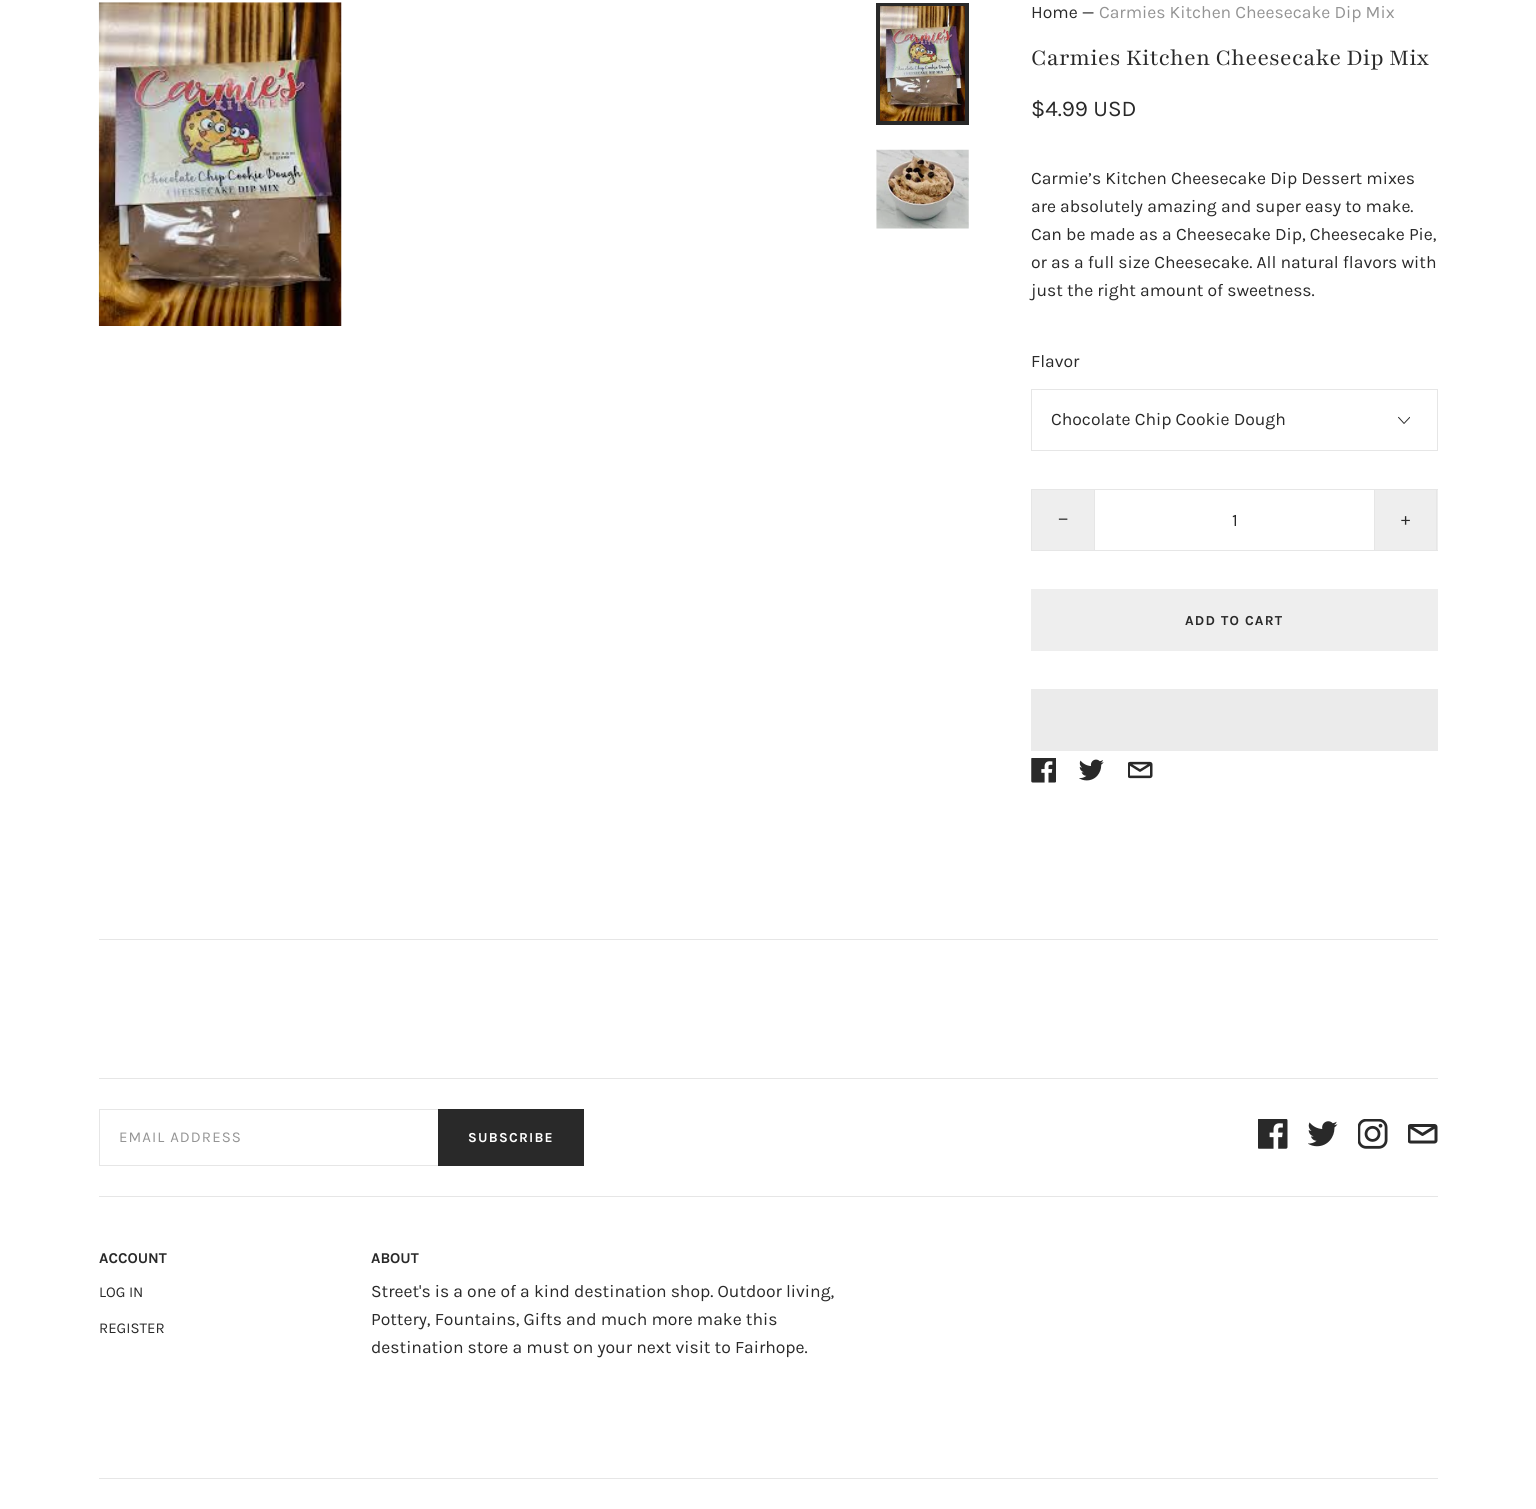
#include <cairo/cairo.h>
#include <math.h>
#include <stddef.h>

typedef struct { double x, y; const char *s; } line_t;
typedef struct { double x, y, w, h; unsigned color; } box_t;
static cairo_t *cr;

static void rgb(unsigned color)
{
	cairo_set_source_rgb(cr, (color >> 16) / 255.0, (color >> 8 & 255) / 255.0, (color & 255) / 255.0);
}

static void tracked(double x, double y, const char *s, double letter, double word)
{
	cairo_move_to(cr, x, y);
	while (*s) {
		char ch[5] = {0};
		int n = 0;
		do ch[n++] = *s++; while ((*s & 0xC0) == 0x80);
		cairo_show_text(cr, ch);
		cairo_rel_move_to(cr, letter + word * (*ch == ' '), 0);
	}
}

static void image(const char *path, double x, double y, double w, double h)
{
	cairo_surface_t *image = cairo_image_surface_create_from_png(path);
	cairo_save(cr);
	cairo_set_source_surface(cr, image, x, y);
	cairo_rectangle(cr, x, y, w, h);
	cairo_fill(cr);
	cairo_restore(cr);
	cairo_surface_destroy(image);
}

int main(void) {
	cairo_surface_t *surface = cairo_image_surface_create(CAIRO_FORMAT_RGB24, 1536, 1509);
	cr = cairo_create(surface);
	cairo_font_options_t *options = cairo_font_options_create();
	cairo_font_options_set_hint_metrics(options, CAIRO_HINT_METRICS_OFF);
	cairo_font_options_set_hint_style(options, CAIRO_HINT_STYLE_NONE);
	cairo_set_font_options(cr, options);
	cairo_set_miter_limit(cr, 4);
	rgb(0xffffff);
	cairo_paint(cr);
	image("img/1.png", 98, 2, 244, 324);
	cairo_rectangle(cr, 878, 5, 89, 118);
	rgb(0x292929);
	cairo_set_line_width(cr, 4);
	cairo_stroke(cr);
	image("img/2.png", 880, 6, 85, 115);
	image("img/3.png", 876, 149, 93, 80);
	cairo_rectangle(cr, 1031.5, 389.5, 406, 61);
	rgb(0xe6e6e6);
	cairo_set_line_width(cr, 1);
	cairo_stroke(cr);
	image("img/4.png", 1398, 416, 12, 8);
	{
		static const box_t items[] = {
			{1032, 490, 62, 60, 0xeeeeee},
			{1031, 489, 63, 1, 0xe6e6e6},
			{1031, 550, 63, 1, 0xe6e6e6},
			{1031, 489, 1, 62, 0xe6e6e6},
		};
		for (size_t i = 0; i < sizeof items / sizeof *items; i++) {
			rgb(items[i].color);
			cairo_rectangle(cr, items[i].x, items[i].y, items[i].w, items[i].h);
			cairo_fill(cr);
		}
	}
	cairo_rectangle(cr, 1094.5, 489.5, 280, 61);
	cairo_stroke(cr);
	{
		static const box_t items[] = {
			{1375, 490, 63, 60, 0xeeeeee},
			{1375, 489, 63, 1, 0xe6e6e6},
			{1436, 489, 1, 62, 0xe6e6e6},
			{1375, 550, 63, 1, 0xe6e6e6},
			{1031, 589, 407, 62, 0xeeeeee},
			{1031, 689, 407, 62, 0xebebeb},
		};
		for (size_t i = 0; i < sizeof items / sizeof *items; i++) {
			rgb(items[i].color);
			cairo_rectangle(cr, items[i].x, items[i].y, items[i].w, items[i].h);
			cairo_fill(cr);
		}
	}
	image("img/5.png", 1031, 758, 25, 25);
	image("img/6.png", 1079, 759, 25, 22);
	image("img/7.png", 1128, 761, 25, 18);
	{
		static const box_t items[] = {
			{99, 939, 1339, 1, 0xe6e6e6},
			{99, 1078, 1339, 1, 0xe6e6e6},
			{99, 1109, 339, 1, 0xe6e6e6},
			{99, 1165, 339, 1, 0xe6e6e6},
			{99, 1109, 1, 57, 0xe6e6e6},
			{438, 1109, 146, 57, 0x292929},
		};
		for (size_t i = 0; i < sizeof items / sizeof *items; i++) {
			rgb(items[i].color);
			cairo_rectangle(cr, items[i].x, items[i].y, items[i].w, items[i].h);
			cairo_fill(cr);
		}
	}
	image("img/8.png", 1258, 1119, 30, 30);
	image("img/9.png", 1308, 1121, 30, 26);
	image("img/10.png", 1358, 1119, 30, 30);
	image("img/11.png", 1408, 1124, 30, 20);
	rgb(0xe6e6e6);
	cairo_rectangle(cr, 99, 1196, 1339, 1);
	cairo_fill(cr);
	cairo_rectangle(cr, 99, 1478, 1339, 1);
	cairo_fill(cr);
	cairo_select_font_face(cr, "Karla", CAIRO_FONT_SLANT_NORMAL, CAIRO_FONT_WEIGHT_NORMAL);
	cairo_set_font_size(cr, 17.5);
	rgb(0x292929);
	cairo_move_to(cr, 1031, 18);
	cairo_show_text(cr, "Home —");
	rgb(0x949494);
	cairo_move_to(cr, 1099, 18);
	cairo_show_text(cr, "Carmies Kitchen Cheesecake Dip Mix");
	cairo_select_font_face(cr, "Playfair", CAIRO_FONT_SLANT_NORMAL, CAIRO_FONT_WEIGHT_NORMAL);
	cairo_set_font_size(cr, 25);
	rgb(0x292929);
	cairo_move_to(cr, 1031, 65);
	cairo_show_text(cr, "Carmies Kitchen Cheesecake Dip Mix");
	cairo_select_font_face(cr, "Karla", CAIRO_FONT_SLANT_NORMAL, CAIRO_FONT_WEIGHT_NORMAL);
	cairo_set_font_size(cr, 22.5);
	cairo_move_to(cr, 1031, 116);
	cairo_show_text(cr, "$4.99 USD");
	cairo_set_font_size(cr, 17.5);
	{
		static const line_t items[] = {
			{1031, 184, "Carmie’s Kitchen Cheesecake Dip Dessert mixes"},
			{1031, 212, "are absolutely amazing and super easy to make."},
			{1031, 240, "Can be made as a Cheesecake Dip, Cheesecake Pie,"},
			{1031, 268, "or as a full size Cheesecake. All natural flavors with"},
			{1031, 296, "just the right amount of sweetness."},
			{1031, 367, "Flavor"},
			{1051, 425, "Chocolate Chip Cookie Dough"},
		};
		for (size_t i = 0; i < sizeof items / sizeof *items; i++) {
			cairo_move_to(cr, items[i].x, items[i].y);
			cairo_show_text(cr, items[i].s);
		}
	}
	cairo_select_font_face(cr, "Liberation Sans", CAIRO_FONT_SLANT_NORMAL, CAIRO_FONT_WEIGHT_NORMAL);
	cairo_move_to(cr, 1058, 525);
	cairo_show_text(cr, "−");
	cairo_select_font_face(cr, "Karla", CAIRO_FONT_SLANT_NORMAL, CAIRO_FONT_WEIGHT_NORMAL);
	cairo_move_to(cr, 1232, 526);
	cairo_show_text(cr, "1");
	cairo_move_to(cr, 1401, 525);
	cairo_show_text(cr, "+");
	cairo_select_font_face(cr, "Karla", CAIRO_FONT_SLANT_NORMAL, CAIRO_FONT_WEIGHT_BOLD);
	cairo_set_font_size(cr, 13.75);
	tracked(1185, 625, "ADD TO CART", 1.25, 0);
	cairo_select_font_face(cr, "Karla", CAIRO_FONT_SLANT_NORMAL, CAIRO_FONT_WEIGHT_NORMAL);
	cairo_set_font_size(cr, 15);
	rgb(0x949494);
	tracked(119, 1142, "EMAIL ADDRESS", 1.1, 0);
	cairo_select_font_face(cr, "Karla", CAIRO_FONT_SLANT_NORMAL, CAIRO_FONT_WEIGHT_BOLD);
	cairo_set_font_size(cr, 13.75);
	rgb(0xffffff);
	tracked(468, 1142, "SUBSCRIBE", 1.25, 0);
	cairo_set_font_size(cr, 15);
	rgb(0x292929);
	cairo_move_to(cr, 99, 1263);
	cairo_show_text(cr, "ACCOUNT");
	cairo_select_font_face(cr, "Karla", CAIRO_FONT_SLANT_NORMAL, CAIRO_FONT_WEIGHT_NORMAL);
	cairo_move_to(cr, 99, 1297);
	cairo_show_text(cr, "LOG IN");
	cairo_move_to(cr, 99, 1333);
	cairo_show_text(cr, "REGISTER");
	cairo_select_font_face(cr, "Karla", CAIRO_FONT_SLANT_NORMAL, CAIRO_FONT_WEIGHT_BOLD);
	cairo_move_to(cr, 371, 1263);
	cairo_show_text(cr, "ABOUT");
	cairo_select_font_face(cr, "Karla", CAIRO_FONT_SLANT_NORMAL, CAIRO_FONT_WEIGHT_NORMAL);
	cairo_set_font_size(cr, 17.5);
	{
		static const line_t items[] = {
			{371, 1297, "Street's is a one of a kind destination shop. Outdoor living,"},
			{371, 1325, "Pottery, Fountains, Gifts and much more make this"},
			{371, 1353, "destination store a must on your next visit to Fairhope."},
		};
		for (size_t i = 0; i < sizeof items / sizeof *items; i++) {
			cairo_move_to(cr, items[i].x, items[i].y);
			cairo_show_text(cr, items[i].s);
		}
	}
	cairo_surface_write_to_png(surface, "page.png");
	cairo_font_options_destroy(options);
	cairo_destroy(cr);
	cairo_surface_destroy(surface);
	return 0;
}
